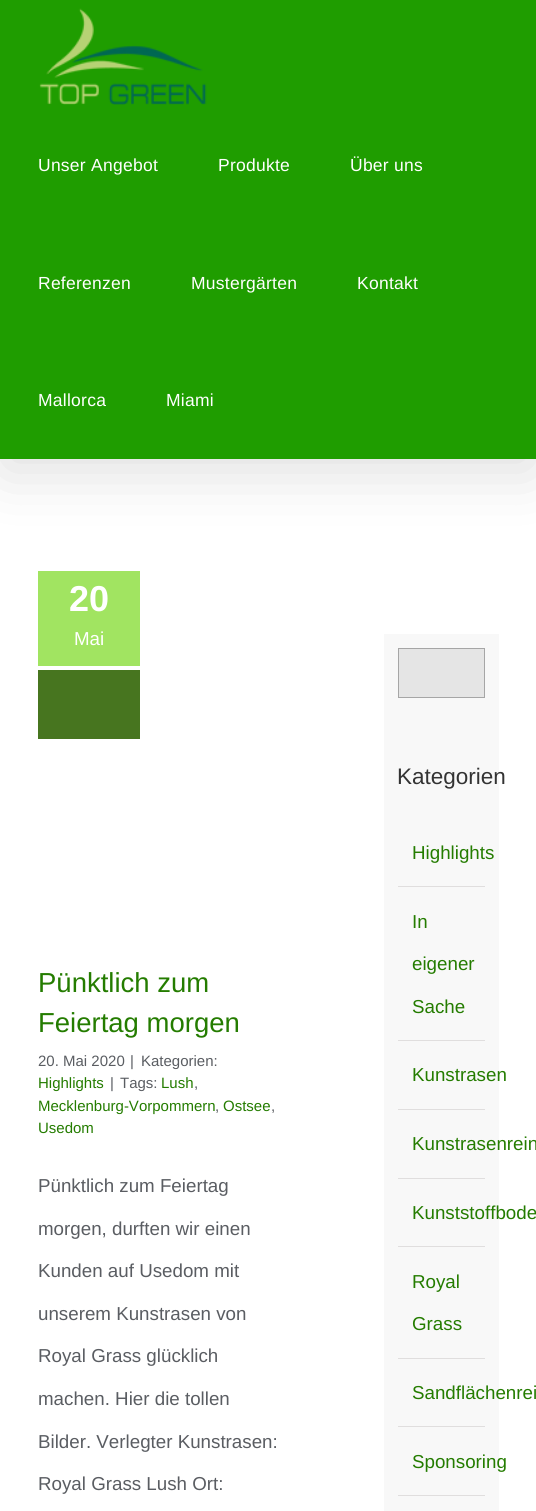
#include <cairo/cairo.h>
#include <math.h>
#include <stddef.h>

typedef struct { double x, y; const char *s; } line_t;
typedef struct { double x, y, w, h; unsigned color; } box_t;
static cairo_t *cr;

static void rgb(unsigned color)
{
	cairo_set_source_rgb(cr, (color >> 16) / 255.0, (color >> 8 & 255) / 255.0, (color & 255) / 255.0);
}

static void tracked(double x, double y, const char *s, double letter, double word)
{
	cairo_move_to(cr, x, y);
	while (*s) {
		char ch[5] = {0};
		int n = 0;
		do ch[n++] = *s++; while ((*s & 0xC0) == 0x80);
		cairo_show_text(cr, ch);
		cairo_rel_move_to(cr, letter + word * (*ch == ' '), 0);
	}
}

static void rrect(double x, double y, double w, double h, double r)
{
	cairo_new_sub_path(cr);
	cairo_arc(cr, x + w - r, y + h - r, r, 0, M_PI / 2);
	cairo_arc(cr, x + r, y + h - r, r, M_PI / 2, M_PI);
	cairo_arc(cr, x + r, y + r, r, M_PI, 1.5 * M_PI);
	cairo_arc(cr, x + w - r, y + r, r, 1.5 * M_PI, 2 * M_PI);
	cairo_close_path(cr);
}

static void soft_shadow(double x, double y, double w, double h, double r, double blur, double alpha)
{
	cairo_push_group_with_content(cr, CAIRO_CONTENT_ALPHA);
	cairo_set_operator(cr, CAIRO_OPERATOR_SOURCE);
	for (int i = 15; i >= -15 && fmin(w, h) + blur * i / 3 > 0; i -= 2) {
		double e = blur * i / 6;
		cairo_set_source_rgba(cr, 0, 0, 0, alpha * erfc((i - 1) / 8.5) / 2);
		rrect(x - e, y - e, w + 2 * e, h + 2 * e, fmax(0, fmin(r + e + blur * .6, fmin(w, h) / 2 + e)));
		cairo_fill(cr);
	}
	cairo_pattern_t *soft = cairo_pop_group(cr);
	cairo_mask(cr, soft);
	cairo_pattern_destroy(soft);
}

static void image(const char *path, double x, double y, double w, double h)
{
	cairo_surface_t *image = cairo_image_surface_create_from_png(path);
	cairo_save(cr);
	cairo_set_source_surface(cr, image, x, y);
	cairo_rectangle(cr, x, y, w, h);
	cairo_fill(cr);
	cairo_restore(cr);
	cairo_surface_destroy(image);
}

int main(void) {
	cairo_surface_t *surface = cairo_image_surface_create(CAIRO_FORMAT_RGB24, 536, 1511);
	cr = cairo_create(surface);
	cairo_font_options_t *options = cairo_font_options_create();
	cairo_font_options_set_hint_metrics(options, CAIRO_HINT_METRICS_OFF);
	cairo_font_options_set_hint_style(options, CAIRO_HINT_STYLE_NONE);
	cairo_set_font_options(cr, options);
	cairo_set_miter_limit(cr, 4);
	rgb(0xffffff);
	cairo_paint(cr);
	rgb(0x000000);
	soft_shadow(3, 15, 531, 454, 0, 31, 0.14);
	rgb(0x1f9d00);
	cairo_rectangle(cr, 0, 0, 536, 459);
	cairo_fill(cr);
	image("img/1.png", 39, 8, 168, 97);
	{
		static const box_t items[] = {
			{38, 571, 102, 95, 0xa1e461},
			{38, 670, 102, 69, 0x47751f},
			{384, 634, 115, 877, 0xf8f8f8},
		};
		for (size_t i = 0; i < sizeof items / sizeof *items; i++) {
			rgb(items[i].color);
			cairo_rectangle(cr, items[i].x, items[i].y, items[i].w, items[i].h);
			cairo_fill(cr);
		}
	}
	rgb(0xe5e5e5);
	cairo_rectangle(cr, 398.5, 648.5, 86, 49);
	cairo_fill_preserve(cr);
	rgb(0xa6a6a6);
	cairo_set_line_width(cr, 1);
	cairo_stroke(cr);
	{
		static const box_t items[] = {
			{398, 886, 87, 1, 0xe0dede},
			{398, 1040, 87, 1, 0xe0dede},
			{398, 1109, 87, 1, 0xe0dede},
			{398, 1178, 87, 1, 0xe0dede},
			{398, 1246, 87, 1, 0xe0dede},
			{398, 1358, 87, 1, 0xe0dede},
			{398, 1426, 87, 1, 0xe0dede},
			{398, 1495, 87, 1, 0xe0dede},
		};
		for (size_t i = 0; i < sizeof items / sizeof *items; i++) {
			rgb(items[i].color);
			cairo_rectangle(cr, items[i].x, items[i].y, items[i].w, items[i].h);
			cairo_fill(cr);
		}
	}
	cairo_select_font_face(cr, "Liberation Sans", CAIRO_FONT_SLANT_NORMAL, CAIRO_FONT_WEIGHT_NORMAL);
	cairo_set_font_size(cr, 17.5);
	rgb(0xffffff);
	{
		static const line_t items[] = {
			{38, 171, "Unser Angebot"},
			{218, 171, "Produkte"},
			{350, 171, "Über uns"},
			{38, 289, "Referenzen"},
			{191, 289, "Mustergärten"},
			{357, 289, "Kontakt"},
			{38, 406, "Mallorca"},
			{166, 406, "Miami"},
		};
		for (size_t i = 0; i < sizeof items / sizeof *items; i++) {
			tracked(items[i].x, items[i].y, items[i].s, 0.25, 0);
		}
	}
	cairo_select_font_face(cr, "Liberation Sans", CAIRO_FONT_SLANT_NORMAL, CAIRO_FONT_WEIGHT_BOLD);
	cairo_set_font_size(cr, 36);
	cairo_move_to(cr, 69, 611);
	cairo_show_text(cr, "20");
	cairo_select_font_face(cr, "Liberation Sans", CAIRO_FONT_SLANT_NORMAL, CAIRO_FONT_WEIGHT_NORMAL);
	cairo_set_font_size(cr, 18.75);
	cairo_move_to(cr, 74, 645);
	cairo_show_text(cr, "Mai");
	cairo_set_font_size(cr, 27.5);
	rgb(0x247c00);
	cairo_move_to(cr, 38, 992);
	cairo_show_text(cr, "Pünktlich zum");
	cairo_move_to(cr, 38, 1032);
	cairo_show_text(cr, "Feiertag morgen");
	cairo_set_font_size(cr, 15);
	rgb(0x5a5d62);
	{
		static const line_t items[] = {
			{38, 1066, "20. Mai 2020"},
			{130, 1066, "|"},
			{141, 1066, "Kategorien:"},
		};
		for (size_t i = 0; i < sizeof items / sizeof *items; i++) {
			cairo_move_to(cr, items[i].x, items[i].y);
			cairo_show_text(cr, items[i].s);
		}
	}
	rgb(0x247c00);
	cairo_move_to(cr, 38, 1088);
	cairo_show_text(cr, "Highlights");
	rgb(0x5a5d62);
	cairo_move_to(cr, 110, 1088);
	cairo_show_text(cr, "|");
	cairo_move_to(cr, 120, 1088);
	cairo_show_text(cr, "Tags:");
	rgb(0x247c00);
	cairo_move_to(cr, 161, 1088);
	cairo_show_text(cr, "Lush");
	rgb(0x5a5d62);
	cairo_move_to(cr, 194, 1088);
	cairo_show_text(cr, ",");
	rgb(0x247c00);
	cairo_move_to(cr, 38, 1111);
	cairo_show_text(cr, "Mecklenburg-Vorpommern");
	rgb(0x5a5d62);
	cairo_move_to(cr, 215, 1111);
	cairo_show_text(cr, ",");
	rgb(0x247c00);
	cairo_move_to(cr, 223, 1111);
	cairo_show_text(cr, "Ostsee");
	rgb(0x5a5d62);
	cairo_move_to(cr, 271, 1111);
	cairo_show_text(cr, ",");
	rgb(0x247c00);
	cairo_move_to(cr, 38, 1133);
	cairo_show_text(cr, "Usedom");
	cairo_set_font_size(cr, 18.75);
	rgb(0x5a5d62);
	{
		static const line_t items[] = {
			{38, 1192, "Pünktlich zum Feiertag"},
			{38, 1235, "morgen, durften wir einen"},
			{38, 1277, "Kunden auf Usedom mit"},
			{38, 1320, "unserem Kunstrasen von"},
			{38, 1362, "Royal Grass glücklich"},
			{38, 1405, "machen. Hier die tollen"},
			{38, 1448, "Bilder. Verlegter Kunstrasen:"},
			{38, 1490, "Royal Grass Lush Ort:"},
		};
		for (size_t i = 0; i < sizeof items / sizeof *items; i++) {
			cairo_move_to(cr, items[i].x, items[i].y);
			cairo_show_text(cr, items[i].s);
		}
	}
	cairo_set_font_size(cr, 22.5);
	rgb(0x333333);
	cairo_move_to(cr, 397, 784);
	cairo_show_text(cr, "Kategorien");
	cairo_set_font_size(cr, 18.75);
	rgb(0x247c00);
	{
		static const line_t items[] = {
			{412, 859, "Highlights"},
			{412, 928, "In"},
			{412, 970, "eigener"},
			{412, 1013, "Sache"},
			{412, 1081, "Kunstrasen"},
			{412, 1150, "Kunstrasenrein"},
			{412, 1219, "Kunststoffbode"},
			{412, 1288, "Royal"},
			{412, 1330, "Grass"},
			{412, 1399, "Sandflächenrei"},
			{412, 1468, "Sponsoring"},
		};
		for (size_t i = 0; i < sizeof items / sizeof *items; i++) {
			cairo_move_to(cr, items[i].x, items[i].y);
			cairo_show_text(cr, items[i].s);
		}
	}
	cairo_surface_write_to_png(surface, "page.png");
	cairo_font_options_destroy(options);
	cairo_destroy(cr);
	cairo_surface_destroy(surface);
	return 0;
}
